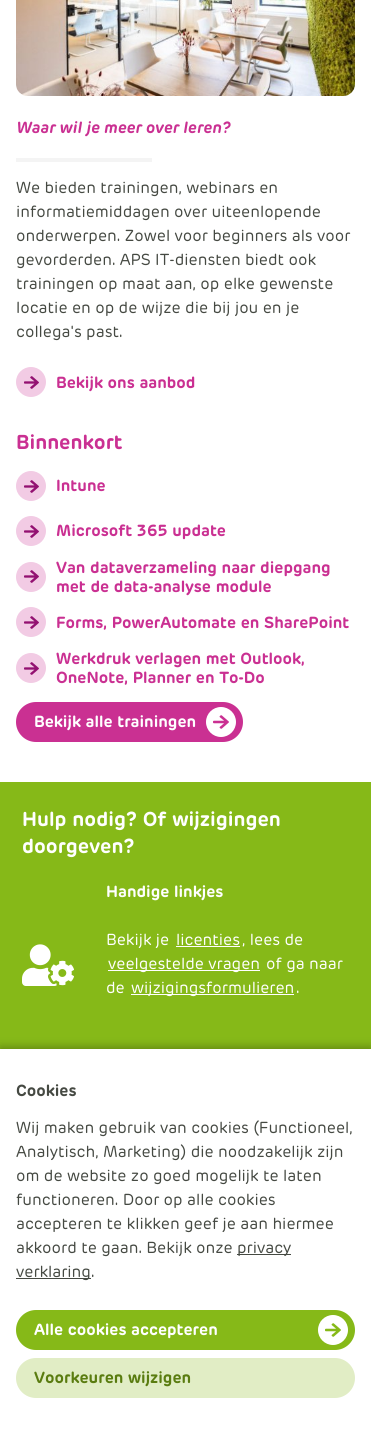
#include <cairo/cairo.h>
#include <math.h>
#include <stddef.h>

typedef struct { double x, y; const char *s; } line_t;
typedef struct { double x, y, w, h; unsigned color; } box_t;
static cairo_t *cr;

static void rgb(unsigned color)
{
	cairo_set_source_rgb(cr, (color >> 16) / 255.0, (color >> 8 & 255) / 255.0, (color & 255) / 255.0);
}

static void rrect(double x, double y, double w, double h, double r)
{
	cairo_new_sub_path(cr);
	cairo_arc(cr, x + w - r, y + h - r, r, 0, M_PI / 2);
	cairo_arc(cr, x + r, y + h - r, r, M_PI / 2, M_PI);
	cairo_arc(cr, x + r, y + r, r, M_PI, 1.5 * M_PI);
	cairo_arc(cr, x + w - r, y + r, r, 1.5 * M_PI, 2 * M_PI);
	cairo_close_path(cr);
}

static void soft_shadow(double x, double y, double w, double h, double r, double blur, double alpha)
{
	cairo_push_group_with_content(cr, CAIRO_CONTENT_ALPHA);
	cairo_set_operator(cr, CAIRO_OPERATOR_SOURCE);
	for (int i = 15; i >= -15 && fmin(w, h) + blur * i / 3 > 0; i -= 2) {
		double e = blur * i / 6;
		cairo_set_source_rgba(cr, 0, 0, 0, alpha * erfc((i - 1) / 8.5) / 2);
		rrect(x - e, y - e, w + 2 * e, h + 2 * e, fmax(0, fmin(r + e + blur * .6, fmin(w, h) / 2 + e)));
		cairo_fill(cr);
	}
	cairo_pattern_t *soft = cairo_pop_group(cr);
	cairo_mask(cr, soft);
	cairo_pattern_destroy(soft);
}

static void image(const char *path, double x, double y, double w, double h)
{
	cairo_surface_t *image = cairo_image_surface_create_from_png(path);
	cairo_save(cr);
	cairo_set_source_surface(cr, image, x, y);
	cairo_rectangle(cr, x, y, w, h);
	cairo_fill(cr);
	cairo_restore(cr);
	cairo_surface_destroy(image);
}

int main(void) {
	cairo_surface_t *surface = cairo_image_surface_create(CAIRO_FORMAT_RGB24, 371, 1438);
	cr = cairo_create(surface);
	cairo_font_options_t *options = cairo_font_options_create();
	cairo_font_options_set_hint_metrics(options, CAIRO_HINT_METRICS_OFF);
	cairo_font_options_set_hint_style(options, CAIRO_HINT_STYLE_NONE);
	cairo_set_font_options(cr, options);
	cairo_set_miter_limit(cr, 4);
	rgb(0xffffff);
	cairo_paint(cr);
	image("img/1.png", 16, 0, 339, 96);
	rgb(0xf4f4f4);
	cairo_rectangle(cr, 16, 158, 136, 4);
	cairo_fill(cr);
	rgb(0xf2cbe4);
	cairo_arc(cr, 31, 382, 15, 0, 2 * M_PI);
	cairo_fill(cr);
	image("img/2.png", 24, 376, 15, 13);
	cairo_arc(cr, 31, 486, 15, 0, 2 * M_PI);
	cairo_fill(cr);
	image("img/2.png", 24, 480, 15, 13);
	cairo_arc(cr, 31, 531, 15, 0, 2 * M_PI);
	cairo_fill(cr);
	image("img/2.png", 24, 525, 15, 13);
	cairo_arc(cr, 31, 577, 15, 0, 2 * M_PI);
	cairo_fill(cr);
	image("img/2.png", 24, 570, 15, 13);
	cairo_arc(cr, 31, 622, 15, 0, 2 * M_PI);
	cairo_fill(cr);
	image("img/2.png", 24, 616, 15, 13);
	cairo_arc(cr, 31, 668, 15, 0, 2 * M_PI);
	cairo_fill(cr);
	image("img/2.png", 24, 662, 15, 13);
	rgb(0xca3092);
	rrect(16, 702, 227, 40, 20);
	cairo_fill(cr);
	rgb(0xffffff);
	cairo_arc(cr, 221, 722, 15, 0, 2 * M_PI);
	cairo_fill(cr);
	image("img/3.png", 213, 715, 16, 14);
	rgb(0x86b918);
	cairo_rectangle(cr, 0, 782, 371, 267);
	cairo_fill(cr);
	image("img/4.png", 22, 944, 52, 42);
	{
		static const box_t items[] = {
			{176, 946, 64, 1, 0xffffff},
			{108, 970, 152, 1, 0xffffff},
			{131, 994, 163, 1, 0xffffff},
		};
		for (size_t i = 0; i < sizeof items / sizeof *items; i++) {
			rgb(items[i].color);
			cairo_rectangle(cr, items[i].x, items[i].y, items[i].w, items[i].h);
			cairo_fill(cr);
		}
	}
	rgb(0x000000);
	soft_shadow(0, 1047, 371, 389, 0, 4.5, 0.28);
	{
		static const box_t items[] = {
			{0, 1049, 371, 389, 0xffffff},
			{237, 1254, 54, 1, 0x454942},
			{16, 1278, 75, 1, 0x454942},
		};
		for (size_t i = 0; i < sizeof items / sizeof *items; i++) {
			rgb(items[i].color);
			cairo_rectangle(cr, items[i].x, items[i].y, items[i].w, items[i].h);
			cairo_fill(cr);
		}
	}
	rgb(0x86b918);
	rrect(16, 1310, 339, 40, 20);
	cairo_fill(cr);
	rgb(0xffffff);
	cairo_arc(cr, 333, 1330, 15, 0, 2 * M_PI);
	cairo_fill(cr);
	image("img/5.png", 325, 1323, 16, 14);
	rgb(0xe1edc5);
	rrect(16, 1358, 339, 40, 20);
	cairo_fill(cr);
	cairo_select_font_face(cr, "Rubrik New", CAIRO_FONT_SLANT_ITALIC, CAIRO_FONT_WEIGHT_BOLD);
	cairo_set_font_size(cr, 16);
	rgb(0xca3092);
	cairo_move_to(cr, 16, 133);
	cairo_show_text(cr, "Waar wil je meer over leren?");
	cairo_select_font_face(cr, "Rubrik New", CAIRO_FONT_SLANT_NORMAL, CAIRO_FONT_WEIGHT_NORMAL);
	rgb(0x454942);
	{
		static const line_t items[] = {
			{16, 193, "We bieden trainingen, webinars en"},
			{16, 217, "informatiemiddagen over uiteenlopende"},
			{16, 241, "onderwerpen. Zowel voor beginners als voor"},
			{16, 265, "gevorderden. APS IT-diensten biedt ook"},
			{16, 289, "trainingen op maat aan, op elke gewenste"},
			{16, 313, "locatie en op de wijze die bij jou en je"},
			{16, 337, "collega's past."},
		};
		for (size_t i = 0; i < sizeof items / sizeof *items; i++) {
			cairo_move_to(cr, items[i].x, items[i].y);
			cairo_show_text(cr, items[i].s);
		}
	}
	cairo_select_font_face(cr, "Rubrik New", CAIRO_FONT_SLANT_NORMAL, CAIRO_FONT_WEIGHT_BOLD);
	rgb(0xca3092);
	cairo_move_to(cr, 56, 388);
	cairo_show_text(cr, "Bekijk ons aanbod");
	cairo_set_font_size(cr, 20);
	cairo_move_to(cr, 16, 449);
	cairo_show_text(cr, "Binnenkort");
	cairo_set_font_size(cr, 16);
	{
		static const line_t items[] = {
			{56, 491, "Intune"},
			{56, 536, "Microsoft 365 update"},
			{56, 573, "Van dataverzameling naar diepgang"},
			{56, 592, "met de data-analyse module"},
			{56, 628, "Forms, PowerAutomate en SharePoint"},
			{56, 664, "Werkdruk verlagen met Outlook,"},
			{56, 683, "OneNote, Planner en To-Do"},
		};
		for (size_t i = 0; i < sizeof items / sizeof *items; i++) {
			cairo_move_to(cr, items[i].x, items[i].y);
			cairo_show_text(cr, items[i].s);
		}
	}
	rgb(0xffffff);
	cairo_move_to(cr, 34, 727);
	cairo_show_text(cr, "Bekijk alle trainingen");
	cairo_set_font_size(cr, 20);
	cairo_move_to(cr, 22, 826);
	cairo_show_text(cr, "Hulp nodig? Of wijzigingen");
	cairo_move_to(cr, 22, 853);
	cairo_show_text(cr, "doorgeven?");
	cairo_set_font_size(cr, 16);
	cairo_move_to(cr, 106, 897);
	cairo_show_text(cr, "Handige linkjes");
	cairo_select_font_face(cr, "Rubrik New", CAIRO_FONT_SLANT_NORMAL, CAIRO_FONT_WEIGHT_NORMAL);
	{
		static const line_t items[] = {
			{106, 945, "Bekijk je"},
			{176, 945, "licenties"},
			{242, 945, ", lees de"},
			{108, 969, "veelgestelde vragen"},
			{266, 969, "of ga naar"},
			{106, 993, "de"},
			{131, 993, "wijzigingsformulieren"},
			{296, 993, "."},
		};
		for (size_t i = 0; i < sizeof items / sizeof *items; i++) {
			cairo_move_to(cr, items[i].x, items[i].y);
			cairo_show_text(cr, items[i].s);
		}
	}
	cairo_select_font_face(cr, "Rubrik New", CAIRO_FONT_SLANT_NORMAL, CAIRO_FONT_WEIGHT_BOLD);
	rgb(0x454942);
	cairo_move_to(cr, 16, 1096);
	cairo_show_text(cr, "Cookies");
	cairo_select_font_face(cr, "Rubrik New", CAIRO_FONT_SLANT_NORMAL, CAIRO_FONT_WEIGHT_NORMAL);
	{
		static const line_t items[] = {
			{16, 1133, "Wij maken gebruik van cookies (Functioneel,"},
			{16, 1157, "Analytisch, Marketing) die noodzakelijk zijn"},
			{16, 1181, "om de website zo goed mogelijk te laten"},
			{16, 1205, "functioneren. Door op alle cookies"},
			{16, 1229, "accepteren te klikken geef je aan hiermee"},
			{16, 1253, "akkoord te gaan. Bekijk onze"},
			{237, 1253, "privacy"},
			{16, 1277, "verklaring."},
		};
		for (size_t i = 0; i < sizeof items / sizeof *items; i++) {
			cairo_move_to(cr, items[i].x, items[i].y);
			cairo_show_text(cr, items[i].s);
		}
	}
	cairo_select_font_face(cr, "Rubrik New", CAIRO_FONT_SLANT_NORMAL, CAIRO_FONT_WEIGHT_BOLD);
	rgb(0xffffff);
	cairo_move_to(cr, 34, 1335);
	cairo_show_text(cr, "Alle cookies accepteren");
	rgb(0x5a7c10);
	cairo_move_to(cr, 34, 1383);
	cairo_show_text(cr, "Voorkeuren wijzigen");
	cairo_surface_write_to_png(surface, "page.png");
	cairo_font_options_destroy(options);
	cairo_destroy(cr);
	cairo_surface_destroy(surface);
	return 0;
}
